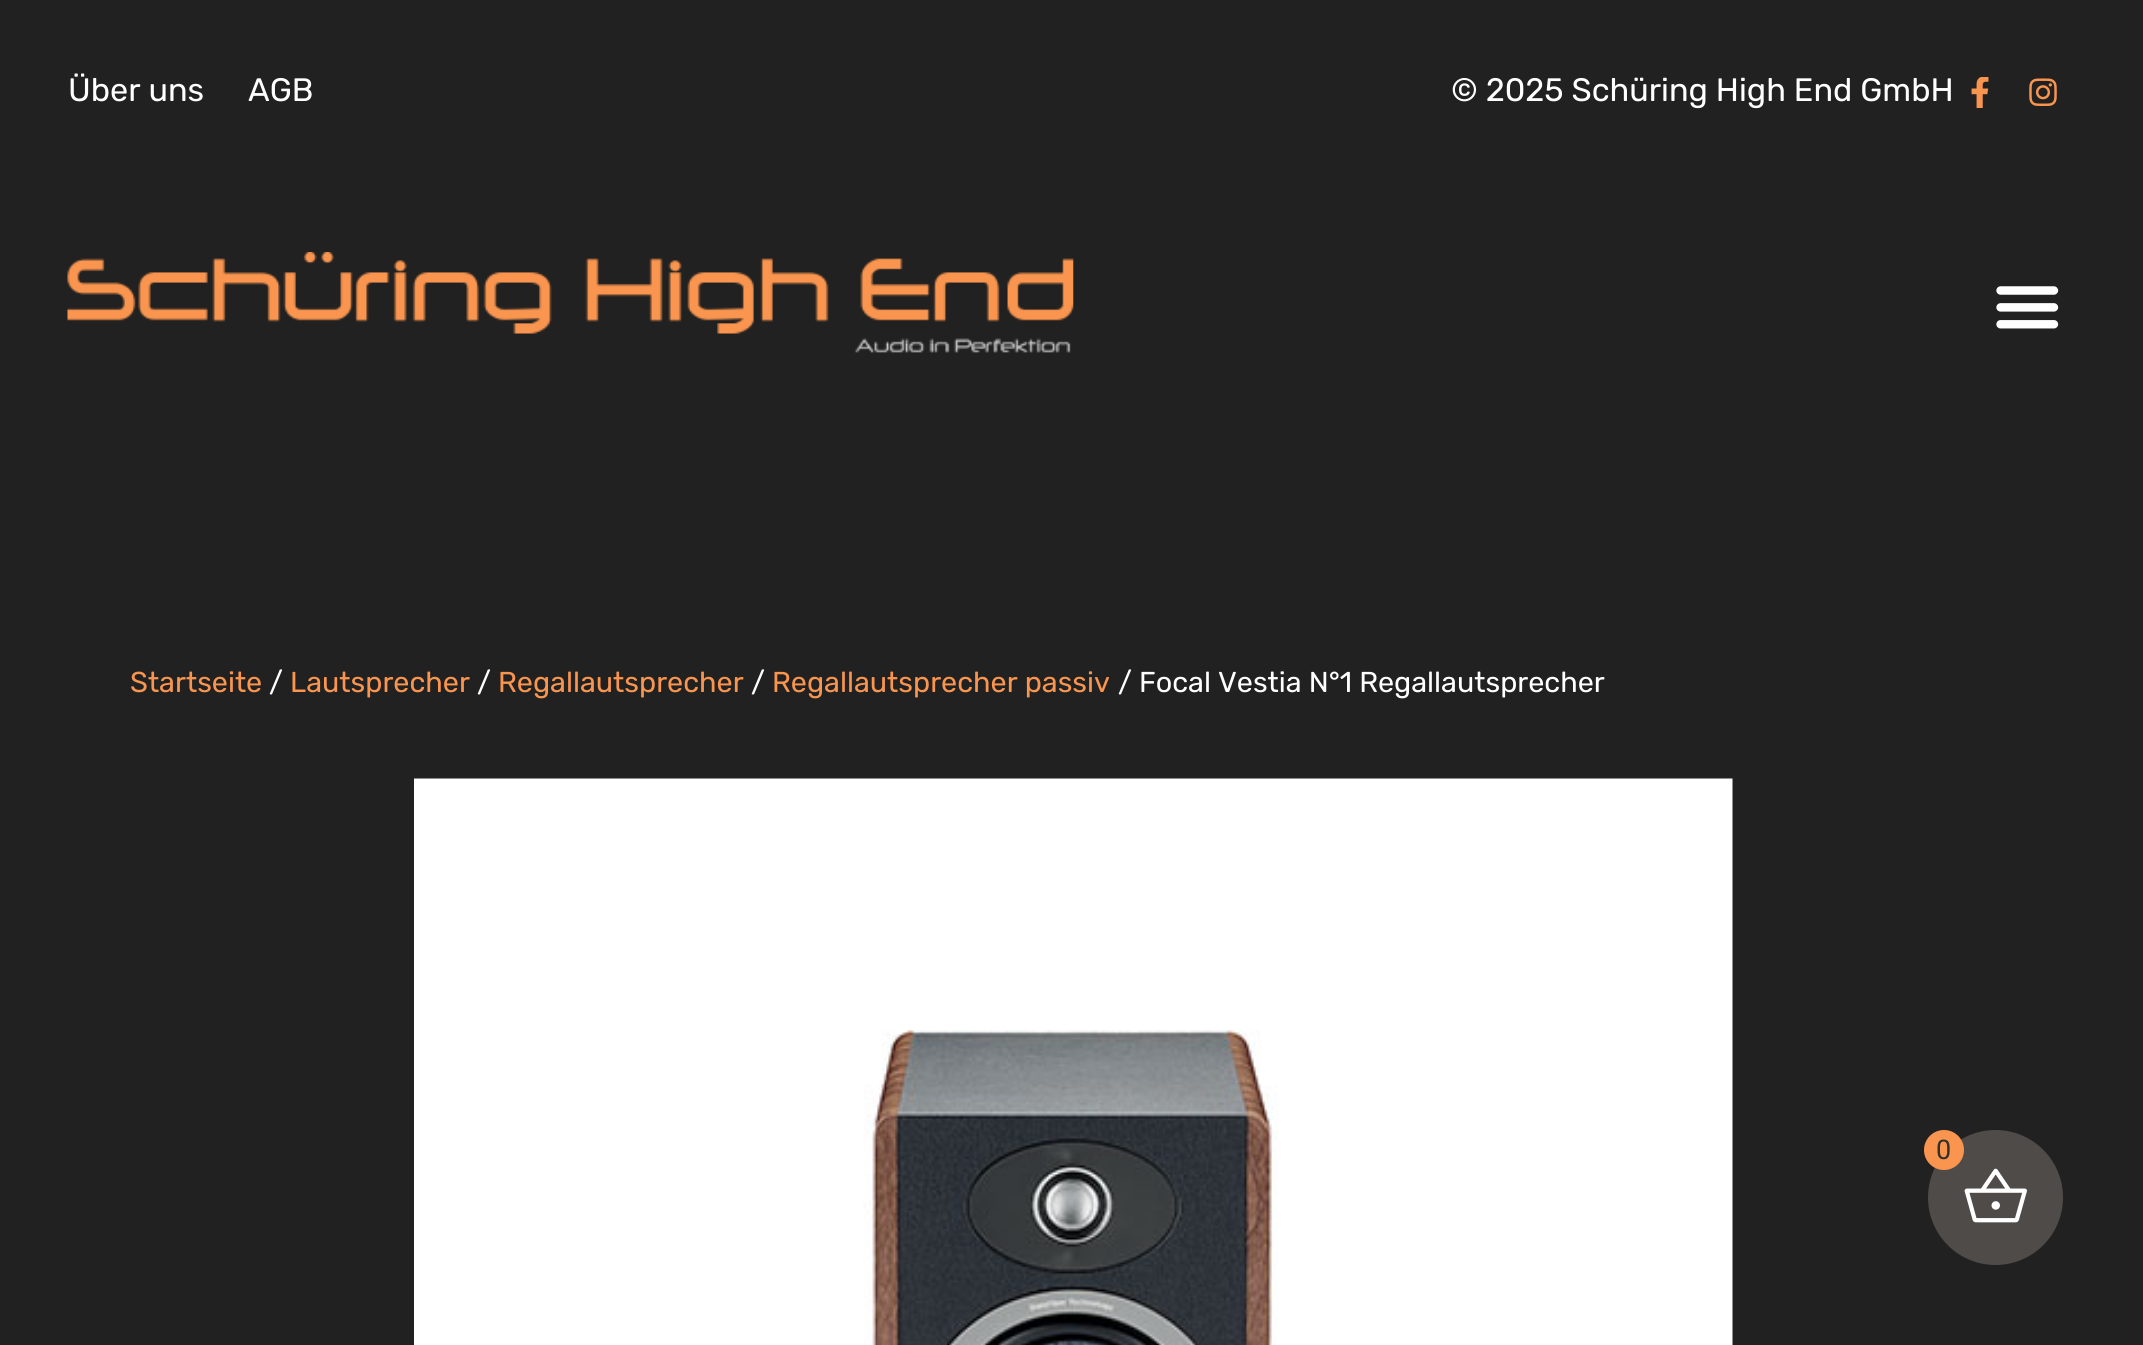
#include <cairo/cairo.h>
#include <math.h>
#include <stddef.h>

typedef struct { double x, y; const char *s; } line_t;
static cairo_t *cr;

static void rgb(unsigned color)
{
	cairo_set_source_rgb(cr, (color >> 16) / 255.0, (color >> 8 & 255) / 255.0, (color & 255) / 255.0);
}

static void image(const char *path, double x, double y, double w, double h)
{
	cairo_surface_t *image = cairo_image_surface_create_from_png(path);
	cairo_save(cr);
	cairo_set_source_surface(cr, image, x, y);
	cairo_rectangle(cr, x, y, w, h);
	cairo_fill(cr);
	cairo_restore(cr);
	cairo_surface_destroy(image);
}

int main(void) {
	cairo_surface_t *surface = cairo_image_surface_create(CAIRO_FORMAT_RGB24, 2143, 1345);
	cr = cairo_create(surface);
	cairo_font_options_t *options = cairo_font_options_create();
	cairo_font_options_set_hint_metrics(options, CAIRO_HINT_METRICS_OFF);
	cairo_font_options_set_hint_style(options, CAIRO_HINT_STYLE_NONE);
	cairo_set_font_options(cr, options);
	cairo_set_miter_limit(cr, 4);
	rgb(0x212121);
	cairo_paint(cr);
	image("img/1.png", 1971, 77, 18, 31);
	image("img/2.png", 2029, 78, 28, 28);
	image("img/3.png", 67, 252, 1007, 101);
	image("img/4.png", 1996, 286, 63, 43);
	image("img/5.png", 414, 778, 1319, 567);
	rgb(0x4e4b48);
	cairo_arc(cr, 1995.5, 1197.5, 67.5, 0, 2 * M_PI);
	cairo_fill(cr);
	image("img/6.png", 1964, 1168, 63, 55);
	rgb(0xf9954f);
	cairo_arc(cr, 1944, 1150, 20, 0, 2 * M_PI);
	cairo_fill(cr);
	cairo_select_font_face(cr, "Rubik", CAIRO_FONT_SLANT_NORMAL, CAIRO_FONT_WEIGHT_NORMAL);
	cairo_set_font_size(cr, 32.4);
	rgb(0xffffff);
	{
		static const line_t items[] = {
			{68, 101, "Über uns"},
			{248, 101, "AGB"},
			{1451, 101, "© 2025 Schüring High End GmbH"},
		};
		for (size_t i = 0; i < sizeof items / sizeof *items; i++) {
			cairo_move_to(cr, items[i].x, items[i].y);
			cairo_show_text(cr, items[i].s);
		}
	}
	cairo_set_font_size(cr, 28.75);
	rgb(0xf9954f);
	cairo_move_to(cr, 130, 692);
	cairo_show_text(cr, "Startseite");
	rgb(0xffffff);
	cairo_move_to(cr, 269, 692);
	cairo_show_text(cr, "/");
	rgb(0xf9954f);
	cairo_move_to(cr, 290, 692);
	cairo_show_text(cr, "Lautsprecher");
	rgb(0xffffff);
	cairo_move_to(cr, 477, 692);
	cairo_show_text(cr, "/");
	rgb(0xf9954f);
	cairo_move_to(cr, 498, 692);
	cairo_show_text(cr, "Regallautsprecher");
	rgb(0xffffff);
	cairo_move_to(cr, 751, 692);
	cairo_show_text(cr, "/");
	rgb(0xf9954f);
	cairo_move_to(cr, 772, 692);
	cairo_show_text(cr, "Regallautsprecher passiv");
	rgb(0xffffff);
	cairo_move_to(cr, 1118, 692);
	cairo_show_text(cr, "/ Focal Vestia N°1 Regallautsprecher");
	cairo_select_font_face(cr, "Roboto", CAIRO_FONT_SLANT_NORMAL, CAIRO_FONT_WEIGHT_NORMAL);
	cairo_set_font_size(cr, 27);
	rgb(0x332f2b);
	cairo_move_to(cr, 1936, 1159);
	cairo_show_text(cr, "0");
	cairo_surface_write_to_png(surface, "page.png");
	cairo_font_options_destroy(options);
	cairo_destroy(cr);
	cairo_surface_destroy(surface);
	return 0;
}
